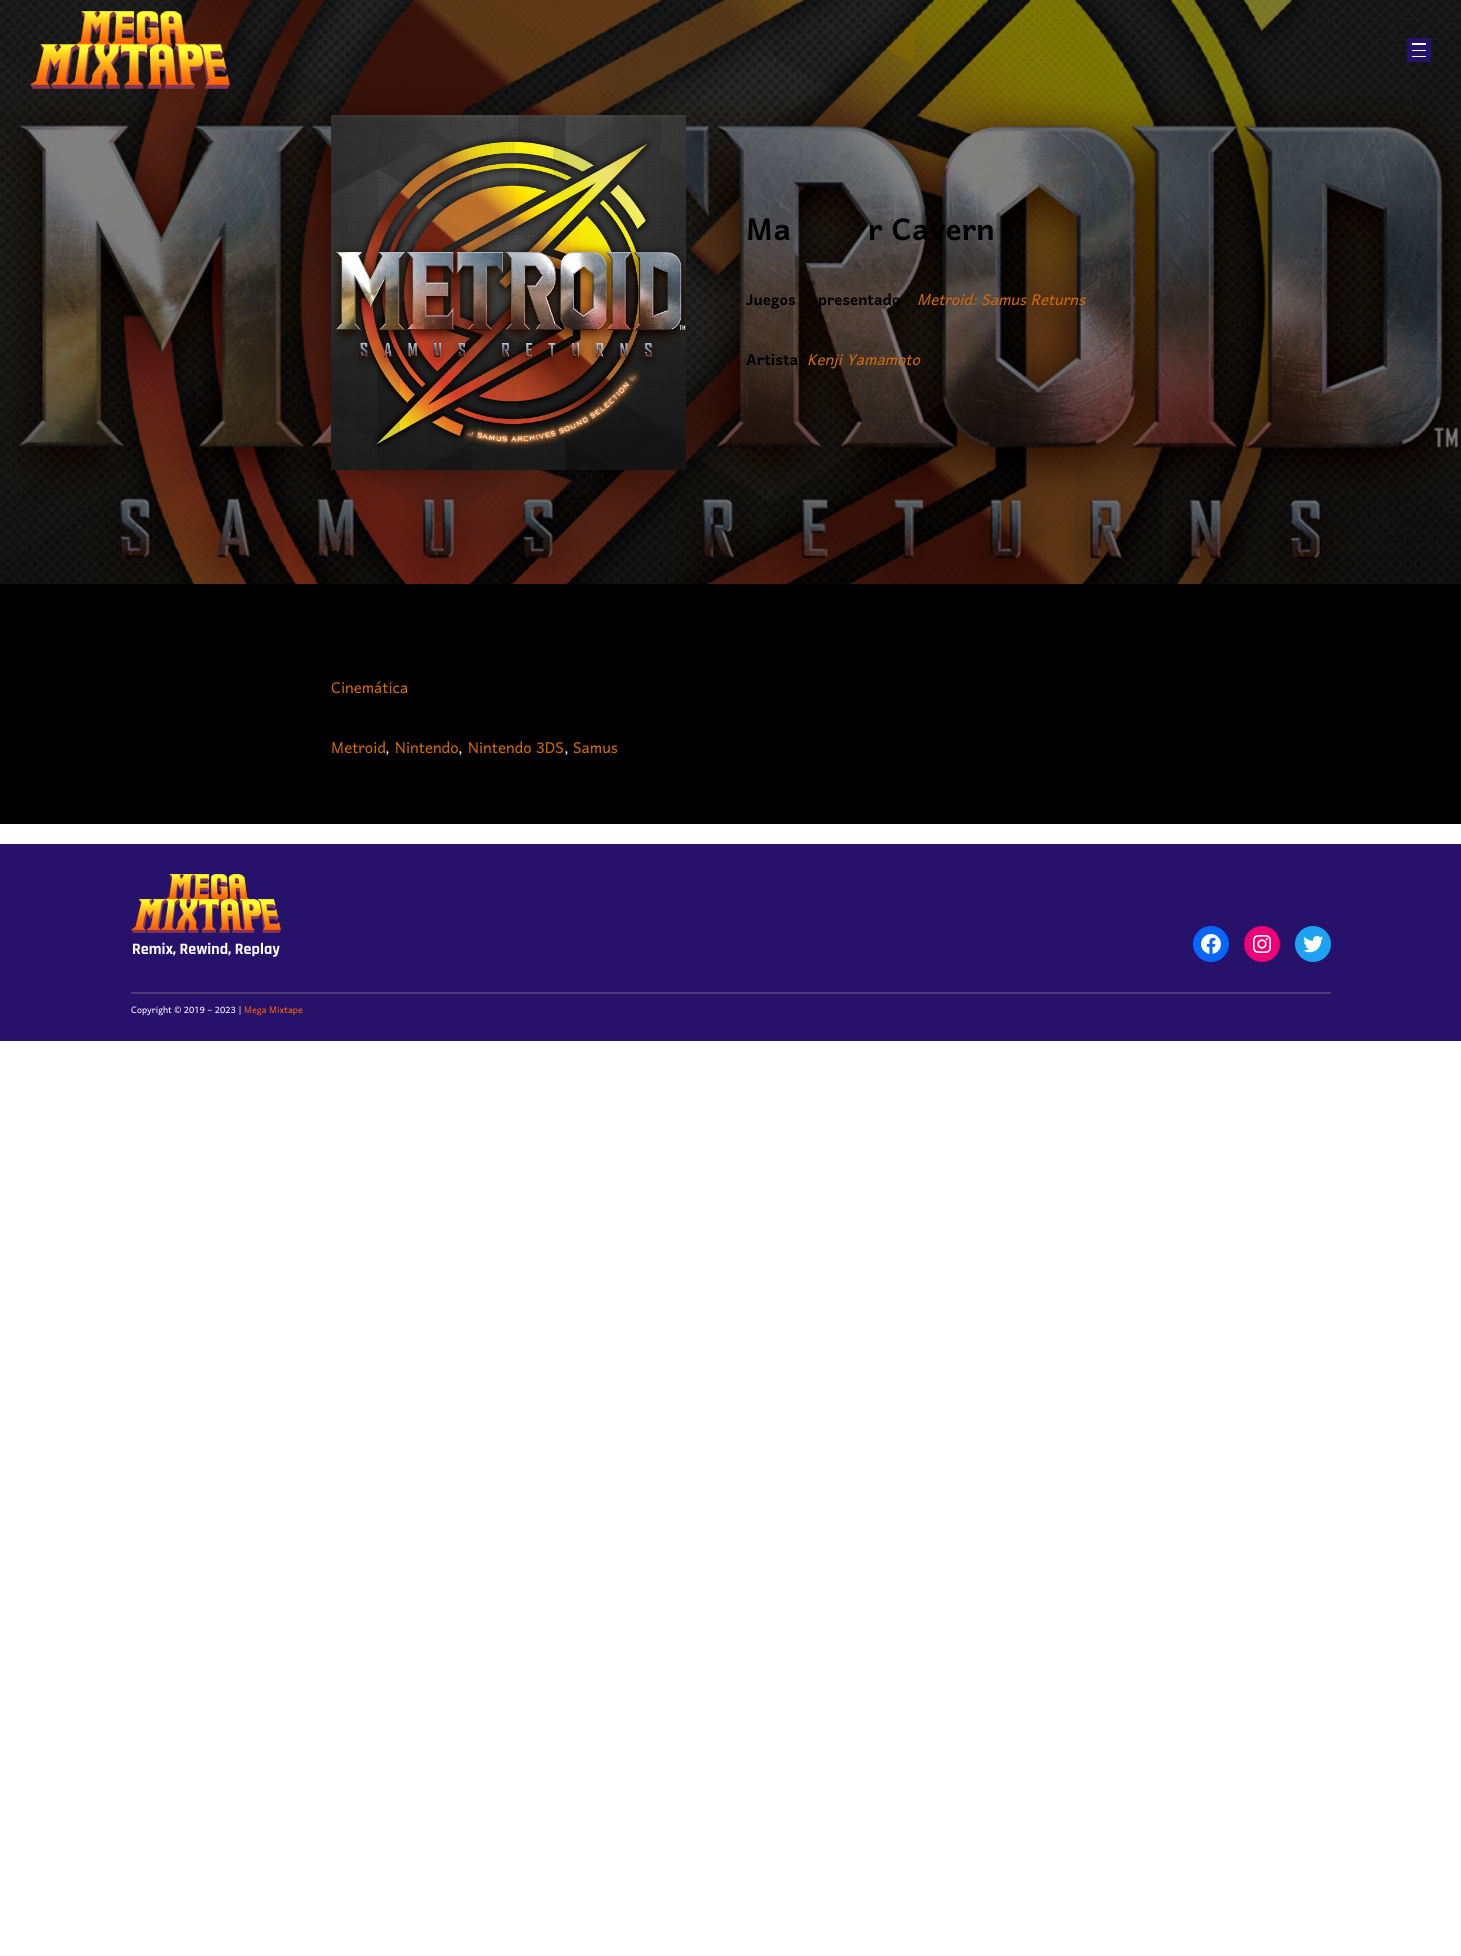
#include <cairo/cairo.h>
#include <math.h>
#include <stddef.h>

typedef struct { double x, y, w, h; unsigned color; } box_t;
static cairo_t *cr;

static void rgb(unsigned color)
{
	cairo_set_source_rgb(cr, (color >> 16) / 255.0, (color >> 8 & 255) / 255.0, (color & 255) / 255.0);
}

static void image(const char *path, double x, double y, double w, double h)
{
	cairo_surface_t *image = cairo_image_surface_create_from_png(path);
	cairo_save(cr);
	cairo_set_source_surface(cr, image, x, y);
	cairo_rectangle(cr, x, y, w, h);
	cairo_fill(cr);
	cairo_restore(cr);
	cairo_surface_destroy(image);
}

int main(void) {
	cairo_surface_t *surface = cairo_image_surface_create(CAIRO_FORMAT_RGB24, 1461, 1956);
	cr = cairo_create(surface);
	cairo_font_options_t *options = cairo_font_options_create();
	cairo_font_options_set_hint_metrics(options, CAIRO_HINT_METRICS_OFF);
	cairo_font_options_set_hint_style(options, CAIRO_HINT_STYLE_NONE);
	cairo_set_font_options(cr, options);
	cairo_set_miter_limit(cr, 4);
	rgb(0xffffff);
	cairo_paint(cr);
	image("img/2.png", 0, 0, 1461, 584);
	image("img/1.png", 30, 11, 200, 78);
	{
		static const box_t items[] = {
			{1407, 38, 24, 24, 0x26126b},
			{1412, 43, 14, 2, 0xffffff},
			{1412, 50, 14, 1, 0xffffff},
			{1412, 56, 14, 1, 0xffffff},
		};
		for (size_t i = 0; i < sizeof items / sizeof *items; i++) {
			rgb(items[i].color);
			cairo_rectangle(cr, items[i].x, items[i].y, items[i].w, items[i].h);
			cairo_fill(cr);
		}
	}
	image("img/3.png", 331, 115, 355, 355);
	rgb(0x000000);
	cairo_rectangle(cr, 0, 584, 1461, 240);
	cairo_fill(cr);
	rgb(0x26126b);
	cairo_rectangle(cr, 0, 844, 1461, 197);
	cairo_fill(cr);
	image("img/4.png", 131, 874, 150, 59);
	rgb(0x0866ff);
	cairo_arc(cr, 1211, 944, 18, 0, 2 * M_PI);
	cairo_fill(cr);
	image("img/5.png", 1201, 934, 20, 20);
	rgb(0xf00075);
	cairo_arc(cr, 1262, 944, 18, 0, 2 * M_PI);
	cairo_fill(cr);
	image("img/6.png", 1253, 935, 18, 18);
	rgb(0x1da1f2);
	cairo_arc(cr, 1313, 944, 18, 0, 2 * M_PI);
	cairo_fill(cr);
	image("img/7.png", 1303, 936, 20, 17);
	rgb(0x4a3e73);
	cairo_rectangle(cr, 131, 992, 1200, 2);
	cairo_fill(cr);
	cairo_select_font_face(cr, "Harmattan", CAIRO_FONT_SLANT_NORMAL, CAIRO_FONT_WEIGHT_BOLD);
	cairo_set_font_size(cr, 40);
	rgb(0x000000);
	cairo_move_to(cr, 746, 240);
	cairo_show_text(cr, "Ma");
	cairo_move_to(cr, 868, 240);
	cairo_show_text(cr, "r Cavern");
	cairo_set_font_size(cr, 20);
	cairo_move_to(cr, 746, 305);
	cairo_show_text(cr, "Juegos");
	cairo_move_to(cr, 818, 305);
	cairo_show_text(cr, "presentado");
	cairo_select_font_face(cr, "Harmattan", CAIRO_FONT_SLANT_ITALIC, CAIRO_FONT_WEIGHT_NORMAL);
	rgb(0xd26909);
	cairo_move_to(cr, 917, 305);
	cairo_show_text(cr, "Metroid: Samus Returns");
	cairo_select_font_face(cr, "Harmattan", CAIRO_FONT_SLANT_NORMAL, CAIRO_FONT_WEIGHT_BOLD);
	rgb(0x000000);
	cairo_move_to(cr, 746, 365);
	cairo_show_text(cr, "Artista");
	cairo_select_font_face(cr, "Harmattan", CAIRO_FONT_SLANT_ITALIC, CAIRO_FONT_WEIGHT_NORMAL);
	rgb(0xd26909);
	cairo_move_to(cr, 807, 365);
	cairo_show_text(cr, "Kenji Yamamoto");
	cairo_select_font_face(cr, "Harmattan", CAIRO_FONT_SLANT_NORMAL, CAIRO_FONT_WEIGHT_NORMAL);
	cairo_move_to(cr, 331, 693);
	cairo_show_text(cr, "Cinemática");
	cairo_move_to(cr, 331, 753);
	cairo_show_text(cr, "Metroid");
	rgb(0xffffff);
	cairo_move_to(cr, 385, 753);
	cairo_show_text(cr, ",");
	rgb(0xd26909);
	cairo_move_to(cr, 395, 753);
	cairo_show_text(cr, "Nintendo");
	rgb(0xffffff);
	cairo_move_to(cr, 458, 753);
	cairo_show_text(cr, ",");
	rgb(0xd26909);
	cairo_move_to(cr, 468, 753);
	cairo_show_text(cr, "Nintendo 3DS");
	rgb(0xffffff);
	cairo_move_to(cr, 564, 753);
	cairo_show_text(cr, ",");
	rgb(0xd26909);
	cairo_move_to(cr, 573, 753);
	cairo_show_text(cr, "Samus");
	cairo_select_font_face(cr, "Rajdhani", CAIRO_FONT_SLANT_NORMAL, CAIRO_FONT_WEIGHT_BOLD);
	cairo_set_font_size(cr, 16);
	rgb(0xffffff);
	cairo_move_to(cr, 132, 954);
	cairo_show_text(cr, "Remix, Rewind, Replay");
	cairo_select_font_face(cr, "Harmattan", CAIRO_FONT_SLANT_NORMAL, CAIRO_FONT_WEIGHT_NORMAL);
	cairo_set_font_size(cr, 12);
	cairo_move_to(cr, 131, 1013);
	cairo_show_text(cr, "Copyright © 2019 – 2023 |");
	rgb(0xff6300);
	cairo_move_to(cr, 244, 1013);
	cairo_show_text(cr, "Mega Mixtape");
	cairo_surface_write_to_png(surface, "page.png");
	cairo_font_options_destroy(options);
	cairo_destroy(cr);
	cairo_surface_destroy(surface);
	return 0;
}
